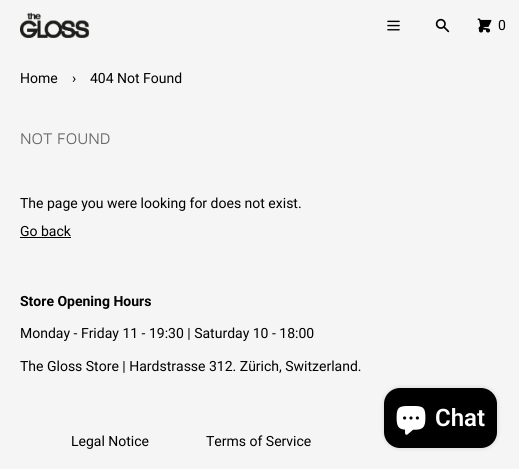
#include <cairo/cairo.h>
#include <math.h>
#include <stddef.h>

typedef struct { double x, y; const char *s; } line_t;
static cairo_t *cr;

static void rgb(unsigned color)
{
	cairo_set_source_rgb(cr, (color >> 16) / 255.0, (color >> 8 & 255) / 255.0, (color & 255) / 255.0);
}

static void rrect(double x, double y, double w, double h, double r)
{
	cairo_new_sub_path(cr);
	cairo_arc(cr, x + w - r, y + h - r, r, 0, M_PI / 2);
	cairo_arc(cr, x + r, y + h - r, r, M_PI / 2, M_PI);
	cairo_arc(cr, x + r, y + r, r, M_PI, 1.5 * M_PI);
	cairo_arc(cr, x + w - r, y + r, r, 1.5 * M_PI, 2 * M_PI);
	cairo_close_path(cr);
}

static void soft_shadow(double x, double y, double w, double h, double r, double blur, double alpha)
{
	cairo_push_group_with_content(cr, CAIRO_CONTENT_ALPHA);
	cairo_set_operator(cr, CAIRO_OPERATOR_SOURCE);
	for (int i = 15; i >= -15 && fmin(w, h) + blur * i / 3 > 0; i -= 2) {
		double e = blur * i / 6;
		cairo_set_source_rgba(cr, 0, 0, 0, alpha * erfc((i - 1) / 8.5) / 2);
		rrect(x - e, y - e, w + 2 * e, h + 2 * e, fmax(0, fmin(r + e + blur * .6, fmin(w, h) / 2 + e)));
		cairo_fill(cr);
	}
	cairo_pattern_t *soft = cairo_pop_group(cr);
	cairo_mask(cr, soft);
	cairo_pattern_destroy(soft);
}

static void image(const char *path, double x, double y, double w, double h)
{
	cairo_surface_t *image = cairo_image_surface_create_from_png(path);
	cairo_save(cr);
	cairo_set_source_surface(cr, image, x, y);
	cairo_rectangle(cr, x, y, w, h);
	cairo_fill(cr);
	cairo_restore(cr);
	cairo_surface_destroy(image);
}

int main(void) {
	cairo_surface_t *surface = cairo_image_surface_create(CAIRO_FORMAT_RGB24, 519, 469);
	cr = cairo_create(surface);
	cairo_font_options_t *options = cairo_font_options_create();
	cairo_font_options_set_hint_metrics(options, CAIRO_HINT_METRICS_OFF);
	cairo_font_options_set_hint_style(options, CAIRO_HINT_STYLE_NONE);
	cairo_set_font_options(cr, options);
	cairo_set_miter_limit(cr, 4);
	rgb(0xf5f5f5);
	cairo_paint(cr);
	image("img/1.png", 20, 12, 70, 26);
	image("img/2.png", 387, 20, 13, 11);
	image("img/3.png", 435, 18, 15, 15);
	image("img/4.png", 477, 18, 15, 15);
	rgb(0x000000);
	cairo_rectangle(cr, 20, 237, 51, 1);
	cairo_fill(cr);
	rgb(0x000000);
	soft_shadow(384, 388, 113, 60, 16, 2.5, 0.15);
	rgb(0x000000);
	rrect(384, 388, 113, 60, 16);
	cairo_fill(cr);
	image("img/5.png", 396, 406, 30, 29);
	cairo_select_font_face(cr, "Roboto", CAIRO_FONT_SLANT_NORMAL, CAIRO_FONT_WEIGHT_NORMAL);
	cairo_set_font_size(cr, 14);
	{
		static const line_t items[] = {
			{498, 30, "0"},
			{20, 83, "Home"},
			{72, 83, "›"},
			{90, 83, "404 Not Found"},
		};
		for (size_t i = 0; i < sizeof items / sizeof *items; i++) {
			cairo_move_to(cr, items[i].x, items[i].y);
			cairo_show_text(cr, items[i].s);
		}
	}
	cairo_select_font_face(cr, "Maven Pro", CAIRO_FONT_SLANT_NORMAL, CAIRO_FONT_WEIGHT_NORMAL);
	cairo_set_font_size(cr, 16);
	rgb(0x6a6a6a);
	cairo_move_to(cr, 20, 144);
	cairo_show_text(cr, "NOT FOUND");
	cairo_select_font_face(cr, "Roboto", CAIRO_FONT_SLANT_NORMAL, CAIRO_FONT_WEIGHT_NORMAL);
	cairo_set_font_size(cr, 14);
	rgb(0x000000);
	cairo_move_to(cr, 20, 208);
	cairo_show_text(cr, "The page you were looking for does not exist.");
	cairo_move_to(cr, 20, 236);
	cairo_show_text(cr, "Go back");
	cairo_select_font_face(cr, "Roboto", CAIRO_FONT_SLANT_NORMAL, CAIRO_FONT_WEIGHT_BOLD);
	cairo_move_to(cr, 20, 306);
	cairo_show_text(cr, "Store Opening Hours");
	cairo_select_font_face(cr, "Roboto", CAIRO_FONT_SLANT_NORMAL, CAIRO_FONT_WEIGHT_NORMAL);
	{
		static const line_t items[] = {
			{20, 338, "Monday - Friday 11 - 19:30 | Saturday 10 - 18:00"},
			{20, 371, "The Gloss Store | Hardstrasse 312. Zürich, Switzerland."},
			{71, 446, "Legal Notice"},
			{206, 446, "Terms of Service"},
		};
		for (size_t i = 0; i < sizeof items / sizeof *items; i++) {
			cairo_move_to(cr, items[i].x, items[i].y);
			cairo_show_text(cr, items[i].s);
		}
	}
	cairo_select_font_face(cr, "Roboto SemiBold", CAIRO_FONT_SLANT_NORMAL, CAIRO_FONT_WEIGHT_NORMAL);
	cairo_set_font_size(cr, 24);
	rgb(0xffffff);
	cairo_move_to(cr, 435, 426);
	cairo_show_text(cr, "Chat");
	cairo_surface_write_to_png(surface, "page.png");
	cairo_font_options_destroy(options);
	cairo_destroy(cr);
	cairo_surface_destroy(surface);
	return 0;
}
